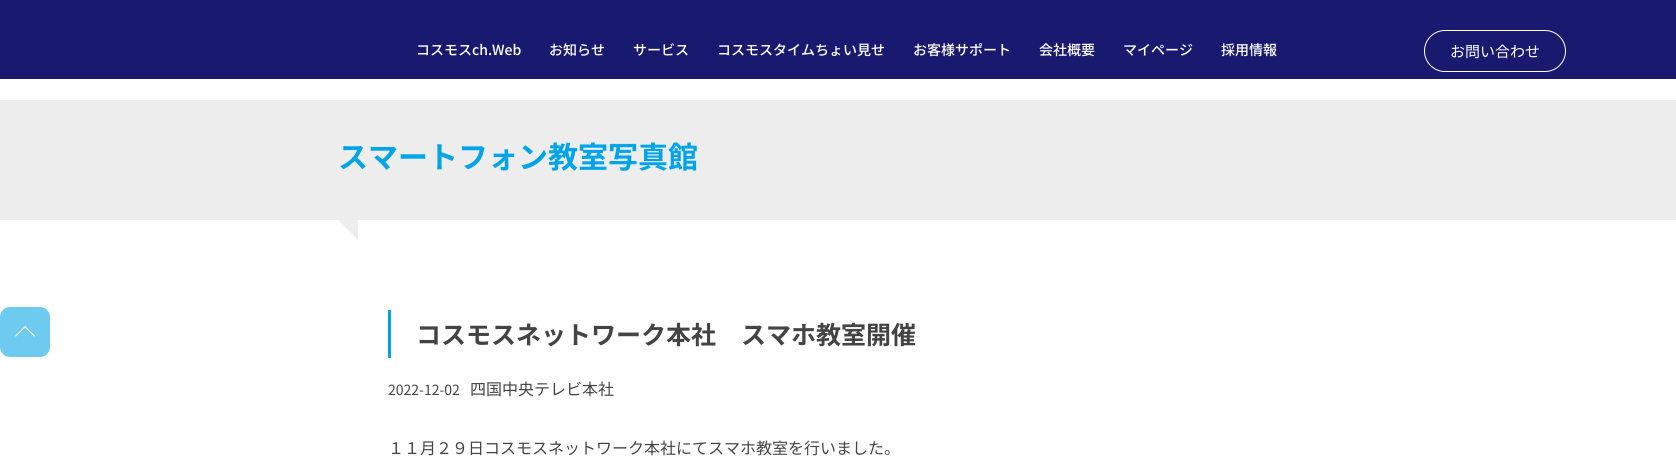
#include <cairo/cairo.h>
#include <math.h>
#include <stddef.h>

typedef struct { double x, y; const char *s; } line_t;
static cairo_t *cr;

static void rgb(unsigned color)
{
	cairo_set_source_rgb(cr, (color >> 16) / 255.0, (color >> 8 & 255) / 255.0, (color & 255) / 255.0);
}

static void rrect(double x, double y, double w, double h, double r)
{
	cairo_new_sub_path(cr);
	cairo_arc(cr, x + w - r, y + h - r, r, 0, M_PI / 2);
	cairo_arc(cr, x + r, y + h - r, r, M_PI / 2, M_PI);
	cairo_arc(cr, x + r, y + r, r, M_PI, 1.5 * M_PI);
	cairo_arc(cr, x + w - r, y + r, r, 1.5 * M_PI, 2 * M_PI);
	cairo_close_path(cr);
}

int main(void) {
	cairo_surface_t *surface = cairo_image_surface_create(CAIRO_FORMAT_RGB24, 1676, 457);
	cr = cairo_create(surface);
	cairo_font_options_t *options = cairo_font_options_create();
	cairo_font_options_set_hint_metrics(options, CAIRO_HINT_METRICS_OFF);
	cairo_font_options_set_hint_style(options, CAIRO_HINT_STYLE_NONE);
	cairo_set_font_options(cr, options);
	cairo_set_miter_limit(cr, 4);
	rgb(0xffffff);
	cairo_paint(cr);
	rgb(0x191970);
	cairo_rectangle(cr, 0, 0, 1676, 79);
	cairo_fill(cr);
	rrect(1424.5, 30.5, 141, 41, 20.5);
	rgb(0xffffff);
	cairo_set_line_width(cr, 1);
	cairo_stroke(cr);
	rgb(0x6ecaef);
	rrect(0, 307, 50, 50, 10);
	cairo_fill(cr);
	rgb(0xffffff);
	cairo_new_path(cr);
	cairo_move_to(cr, 25, 326);
	cairo_line_to(cr, 35, 336);
	cairo_line_to(cr, 34, 336.5);
	cairo_line_to(cr, 24.5, 327);
	cairo_close_path(cr);
	cairo_fill(cr);
	cairo_new_path(cr);
	cairo_move_to(cr, 25, 326);
	cairo_line_to(cr, 25.5, 327);
	cairo_line_to(cr, 16, 336.5);
	cairo_line_to(cr, 15, 336);
	cairo_close_path(cr);
	cairo_fill(cr);
	rgb(0xededed);
	cairo_rectangle(cr, 0, 100, 1676, 120);
	cairo_fill(cr);
	cairo_new_path(cr);
	cairo_move_to(cr, 338, 220);
	cairo_line_to(cr, 358, 220);
	cairo_line_to(cr, 348, 230);
	cairo_close_path(cr);
	cairo_fill(cr);
	cairo_new_path(cr);
	cairo_move_to(cr, 358, 220);
	cairo_line_to(cr, 358, 240);
	cairo_line_to(cr, 348, 230);
	cairo_close_path(cr);
	cairo_fill(cr);
	rgb(0x02a4e8);
	cairo_rectangle(cr, 388, 310, 3, 48);
	cairo_fill(cr);
	cairo_select_font_face(cr, "Noto Sans JP Medium", CAIRO_FONT_SLANT_NORMAL, CAIRO_FONT_WEIGHT_NORMAL);
	cairo_set_font_size(cr, 14);
	rgb(0xffffff);
	{
		static const line_t items[] = {
			{416, 55, "コスモスch.Web"},
			{549, 55, "お知らせ"},
			{633, 55, "サービス"},
			{717, 55, "コスモスタイムちょい見せ"},
			{913, 55, "お客様サポート"},
			{1039, 55, "会社概要"},
			{1123, 55, "マイページ"},
			{1221, 55, "採用情報"},
		};
		for (size_t i = 0; i < sizeof items / sizeof *items; i++) {
			cairo_move_to(cr, items[i].x, items[i].y);
			cairo_show_text(cr, items[i].s);
		}
	}
	cairo_select_font_face(cr, "Noto Sans JP", CAIRO_FONT_SLANT_NORMAL, CAIRO_FONT_WEIGHT_NORMAL);
	cairo_set_font_size(cr, 15);
	cairo_move_to(cr, 1450, 57);
	cairo_show_text(cr, "お問い合わせ");
	cairo_select_font_face(cr, "Noto Sans JP", CAIRO_FONT_SLANT_NORMAL, CAIRO_FONT_WEIGHT_BOLD);
	cairo_set_font_size(cr, 30);
	rgb(0x00a4e8);
	cairo_move_to(cr, 338, 168);
	cairo_show_text(cr, "スマートフォン教室写真館");
	cairo_set_font_size(cr, 25);
	rgb(0x444444);
	cairo_move_to(cr, 416, 344);
	cairo_show_text(cr, "コスモスネットワーク本社　スマホ教室開催");
	cairo_select_font_face(cr, "Noto Sans JP", CAIRO_FONT_SLANT_NORMAL, CAIRO_FONT_WEIGHT_NORMAL);
	cairo_set_font_size(cr, 14);
	cairo_move_to(cr, 388, 395);
	cairo_show_text(cr, "2022-12-02");
	cairo_set_font_size(cr, 16);
	cairo_move_to(cr, 470, 395);
	cairo_show_text(cr, "四国中央テレビ本社");
	cairo_move_to(cr, 388, 454);
	cairo_show_text(cr, "１１月２９日コスモスネットワーク本社にてスマホ教室を行いました。");
	cairo_surface_write_to_png(surface, "page.png");
	cairo_font_options_destroy(options);
	cairo_destroy(cr);
	cairo_surface_destroy(surface);
	return 0;
}
